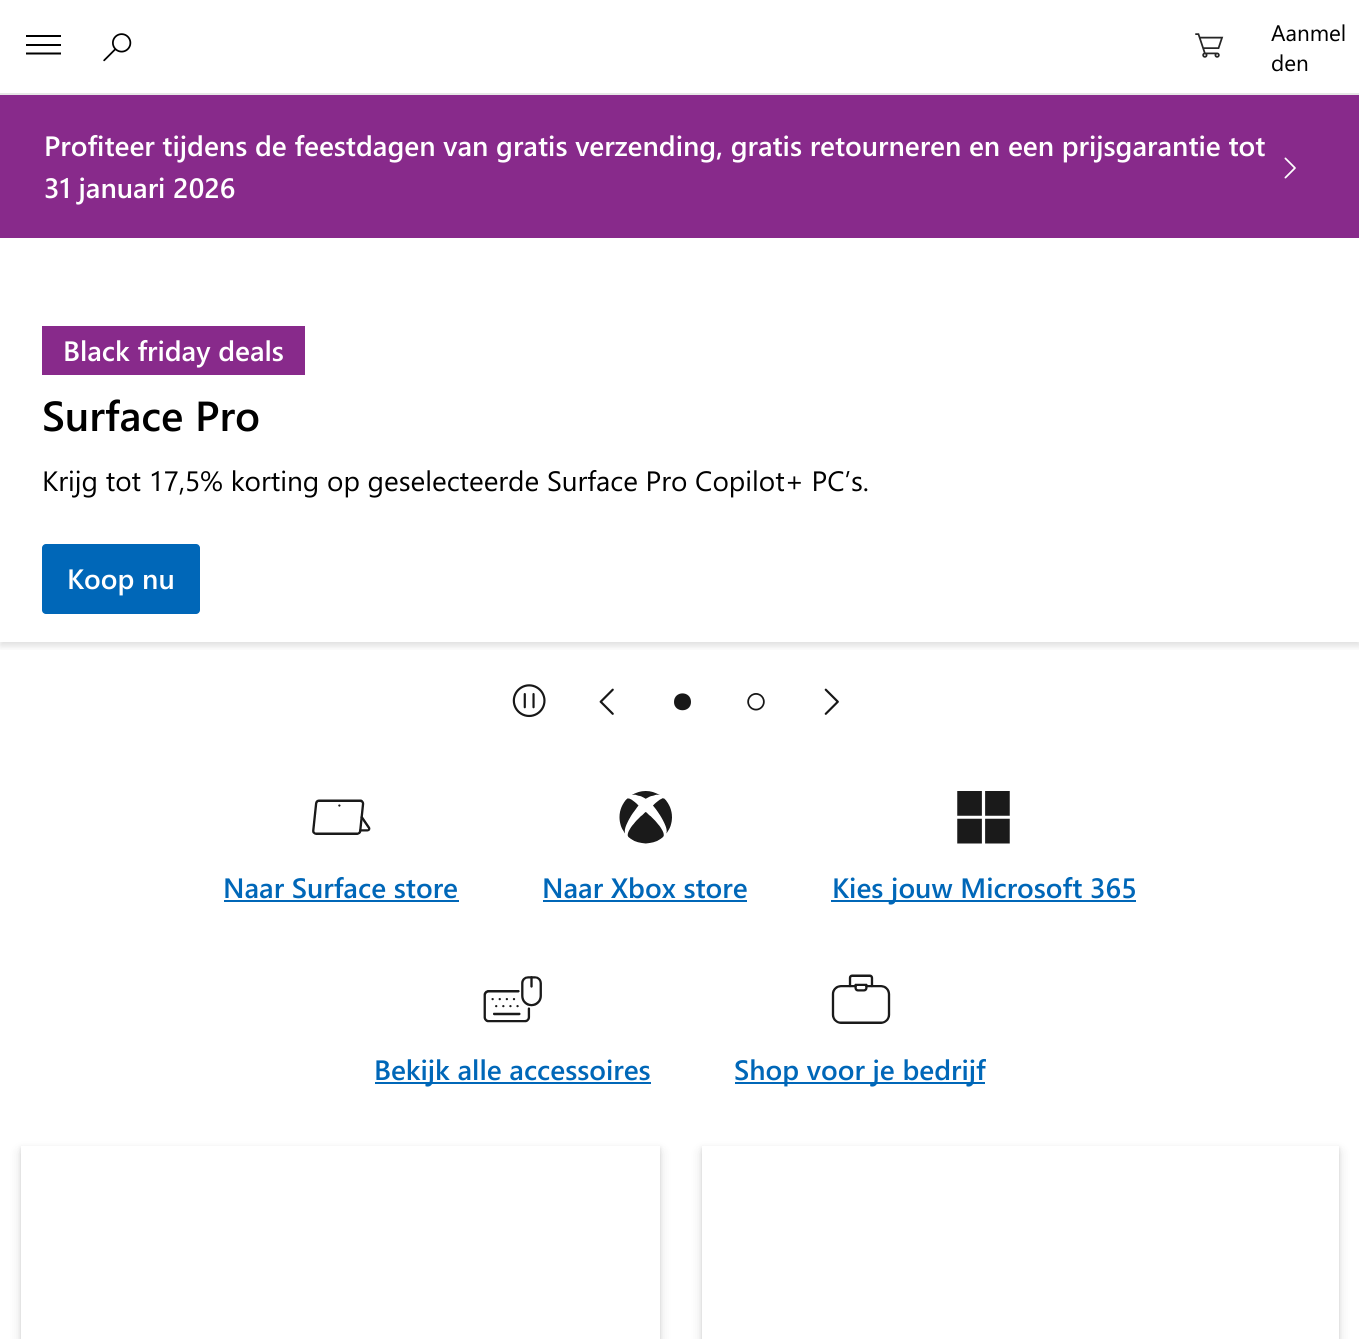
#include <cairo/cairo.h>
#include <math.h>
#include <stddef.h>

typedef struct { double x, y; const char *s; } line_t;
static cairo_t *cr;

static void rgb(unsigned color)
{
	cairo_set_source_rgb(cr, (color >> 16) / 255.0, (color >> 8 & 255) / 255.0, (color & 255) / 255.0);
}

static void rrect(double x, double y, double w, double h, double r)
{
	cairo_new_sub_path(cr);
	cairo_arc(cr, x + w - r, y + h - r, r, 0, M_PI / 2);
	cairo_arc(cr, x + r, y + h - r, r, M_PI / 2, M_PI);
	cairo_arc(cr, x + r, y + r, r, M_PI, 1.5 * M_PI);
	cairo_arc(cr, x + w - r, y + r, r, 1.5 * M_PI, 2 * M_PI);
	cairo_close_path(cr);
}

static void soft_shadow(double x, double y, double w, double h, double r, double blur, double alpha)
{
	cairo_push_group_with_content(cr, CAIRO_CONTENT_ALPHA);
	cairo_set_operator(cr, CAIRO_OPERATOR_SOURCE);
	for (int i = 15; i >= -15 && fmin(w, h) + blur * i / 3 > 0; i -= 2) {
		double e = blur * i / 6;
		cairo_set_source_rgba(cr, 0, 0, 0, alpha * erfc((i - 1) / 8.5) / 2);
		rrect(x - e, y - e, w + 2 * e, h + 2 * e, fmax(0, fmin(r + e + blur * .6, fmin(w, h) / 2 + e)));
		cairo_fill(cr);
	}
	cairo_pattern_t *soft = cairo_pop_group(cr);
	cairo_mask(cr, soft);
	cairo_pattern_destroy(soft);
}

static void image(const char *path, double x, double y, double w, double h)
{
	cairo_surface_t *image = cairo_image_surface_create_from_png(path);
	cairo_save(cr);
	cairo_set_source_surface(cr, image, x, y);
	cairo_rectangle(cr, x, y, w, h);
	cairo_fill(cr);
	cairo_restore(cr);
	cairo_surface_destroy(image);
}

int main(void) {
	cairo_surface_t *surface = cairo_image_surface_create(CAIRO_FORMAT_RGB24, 1359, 1339);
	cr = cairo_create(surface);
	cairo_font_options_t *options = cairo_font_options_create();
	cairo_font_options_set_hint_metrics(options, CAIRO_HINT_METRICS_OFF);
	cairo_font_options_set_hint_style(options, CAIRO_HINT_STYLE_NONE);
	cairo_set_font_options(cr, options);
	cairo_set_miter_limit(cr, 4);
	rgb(0xffffff);
	cairo_paint(cr);
	rgb(0xe6e6e6);
	cairo_rectangle(cr, 0, 93, 1359, 2);
	cairo_fill(cr);
	rgb(0x000000);
	cairo_new_path(cr);
	cairo_move_to(cr, 61, 37);
	cairo_line_to(cr, 26, 37);
	cairo_line_to(cr, 26, 35);
	cairo_line_to(cr, 61, 35);
	cairo_close_path(cr);
	cairo_move_to(cr, 61, 54.5);
	cairo_line_to(cr, 26, 54.5);
	cairo_line_to(cr, 26, 52.5);
	cairo_line_to(cr, 61, 52.5);
	cairo_close_path(cr);
	cairo_move_to(cr, 61, 46);
	cairo_line_to(cr, 26, 46);
	cairo_line_to(cr, 26, 44);
	cairo_line_to(cr, 61, 44);
	cairo_close_path(cr);
	cairo_fill(cr);
	image("img/1.png", 103, 33, 29, 29);
	image("img/2.png", 1195, 33, 29, 25);
	rgb(0x882a8b);
	cairo_rectangle(cr, 0, 95, 1359, 143);
	cairo_fill(cr);
	image("img/3.png", 1284, 157, 12, 22);
	cairo_save(cr);
	cairo_rectangle(cr, 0, 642, 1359, 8);
	cairo_clip(cr);
	rgb(0x000000);
	soft_shadow(0, 242, 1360, 404, 0, 3.5, 0.13);
	cairo_restore(cr);
	cairo_rectangle(cr, 42, 326, 263, 49);
	cairo_fill(cr);
	rgb(0x0067b8);
	rrect(42, 544, 158, 70, 4);
	cairo_fill(cr);
	image("img/4.png", 512, 684, 34, 34);
	image("img/5.png", 599, 688, 15, 27);
	rgb(0x171717);
	cairo_new_path(cr);
	cairo_move_to(cr, 674, 702);
	cairo_curve_to(cr, 674, 690.5, 691, 690.5, 691, 702);
	cairo_curve_to(cr, 691, 713, 674, 713, 674, 702);
	cairo_close_path(cr);
	cairo_fill(cr);
	image("img/6.png", 747, 693, 18, 18);
	image("img/7.png", 824, 688, 15, 27);
	image("img/8.png", 312, 799, 59, 36);
	rgb(0x0067b8);
	cairo_rectangle(cr, 224, 900, 235, 2);
	cairo_fill(cr);
	image("img/9.png", 619, 791, 53, 53);
	cairo_rectangle(cr, 543, 900, 204, 2);
	cairo_fill(cr);
	image("img/10.png", 957, 791, 53, 53);
	cairo_rectangle(cr, 831, 900, 305, 2);
	cairo_fill(cr);
	image("img/11.png", 483, 976, 59, 47);
	cairo_rectangle(cr, 375, 1082, 276, 2);
	cairo_fill(cr);
	image("img/12.png", 831, 974, 60, 50);
	cairo_rectangle(cr, 735, 1082, 250, 2);
	cairo_fill(cr);
	rgb(0x000000);
	soft_shadow(21, 1148, 639, 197, 0, 2, 0.11);
	soft_shadow(21, 1152, 639, 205, 0, 6, 0.13);
	rgb(0xffffff);
	cairo_rectangle(cr, 21, 1146, 639, 193);
	cairo_fill(cr);
	rgb(0x000000);
	soft_shadow(702, 1148, 637, 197, 0, 2, 0.11);
	soft_shadow(702, 1152, 637, 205, 0, 6, 0.13);
	rgb(0xffffff);
	cairo_rectangle(cr, 702, 1146, 637, 193);
	cairo_fill(cr);
	cairo_select_font_face(cr, "Segoe UI", CAIRO_FONT_SLANT_NORMAL, CAIRO_FONT_WEIGHT_NORMAL);
	cairo_set_font_size(cr, 22.5);
	rgb(0x000000);
	cairo_move_to(cr, 1271, 41);
	cairo_show_text(cr, "Aanmel");
	cairo_move_to(cr, 1271, 71);
	cairo_show_text(cr, "den");
	cairo_select_font_face(cr, "Segoe UI SemiBold", CAIRO_FONT_SLANT_NORMAL, CAIRO_FONT_WEIGHT_NORMAL);
	cairo_set_font_size(cr, 28);
	rgb(0xffffff);
	{
		static const line_t items[] = {
			{44, 156, "Profiteer tijdens de feestdagen van gratis verzending, gratis retourneren en een prijsgarantie tot"},
			{44, 198, "31 januari 2026"},
			{63, 361, "Black friday deals"},
		};
		for (size_t i = 0; i < sizeof items / sizeof *items; i++) {
			cairo_move_to(cr, items[i].x, items[i].y);
			cairo_show_text(cr, items[i].s);
		}
	}
	cairo_set_font_size(cr, 42);
	rgb(0x000000);
	cairo_move_to(cr, 42, 431);
	cairo_show_text(cr, "Surface Pro");
	cairo_select_font_face(cr, "Segoe UI", CAIRO_FONT_SLANT_NORMAL, CAIRO_FONT_WEIGHT_NORMAL);
	cairo_set_font_size(cr, 28);
	cairo_move_to(cr, 42, 491);
	cairo_show_text(cr, "Krijg tot 17,5% korting op geselecteerde Surface Pro Copilot+ PC’s.");
	cairo_select_font_face(cr, "Segoe UI SemiBold", CAIRO_FONT_SLANT_NORMAL, CAIRO_FONT_WEIGHT_NORMAL);
	rgb(0xffffff);
	cairo_move_to(cr, 67, 589);
	cairo_show_text(cr, "Koop nu");
	rgb(0x0067b8);
	{
		static const line_t items[] = {
			{223, 898, "Naar Surface store"},
			{542, 898, "Naar Xbox store"},
			{832, 898, "Kies jouw Microsoft 365"},
			{374, 1080, "Bekijk alle accessoires"},
			{734, 1080, "Shop voor je bedrijf"},
		};
		for (size_t i = 0; i < sizeof items / sizeof *items; i++) {
			cairo_move_to(cr, items[i].x, items[i].y);
			cairo_show_text(cr, items[i].s);
		}
	}
	cairo_surface_write_to_png(surface, "page.png");
	cairo_font_options_destroy(options);
	cairo_destroy(cr);
	cairo_surface_destroy(surface);
	return 0;
}
